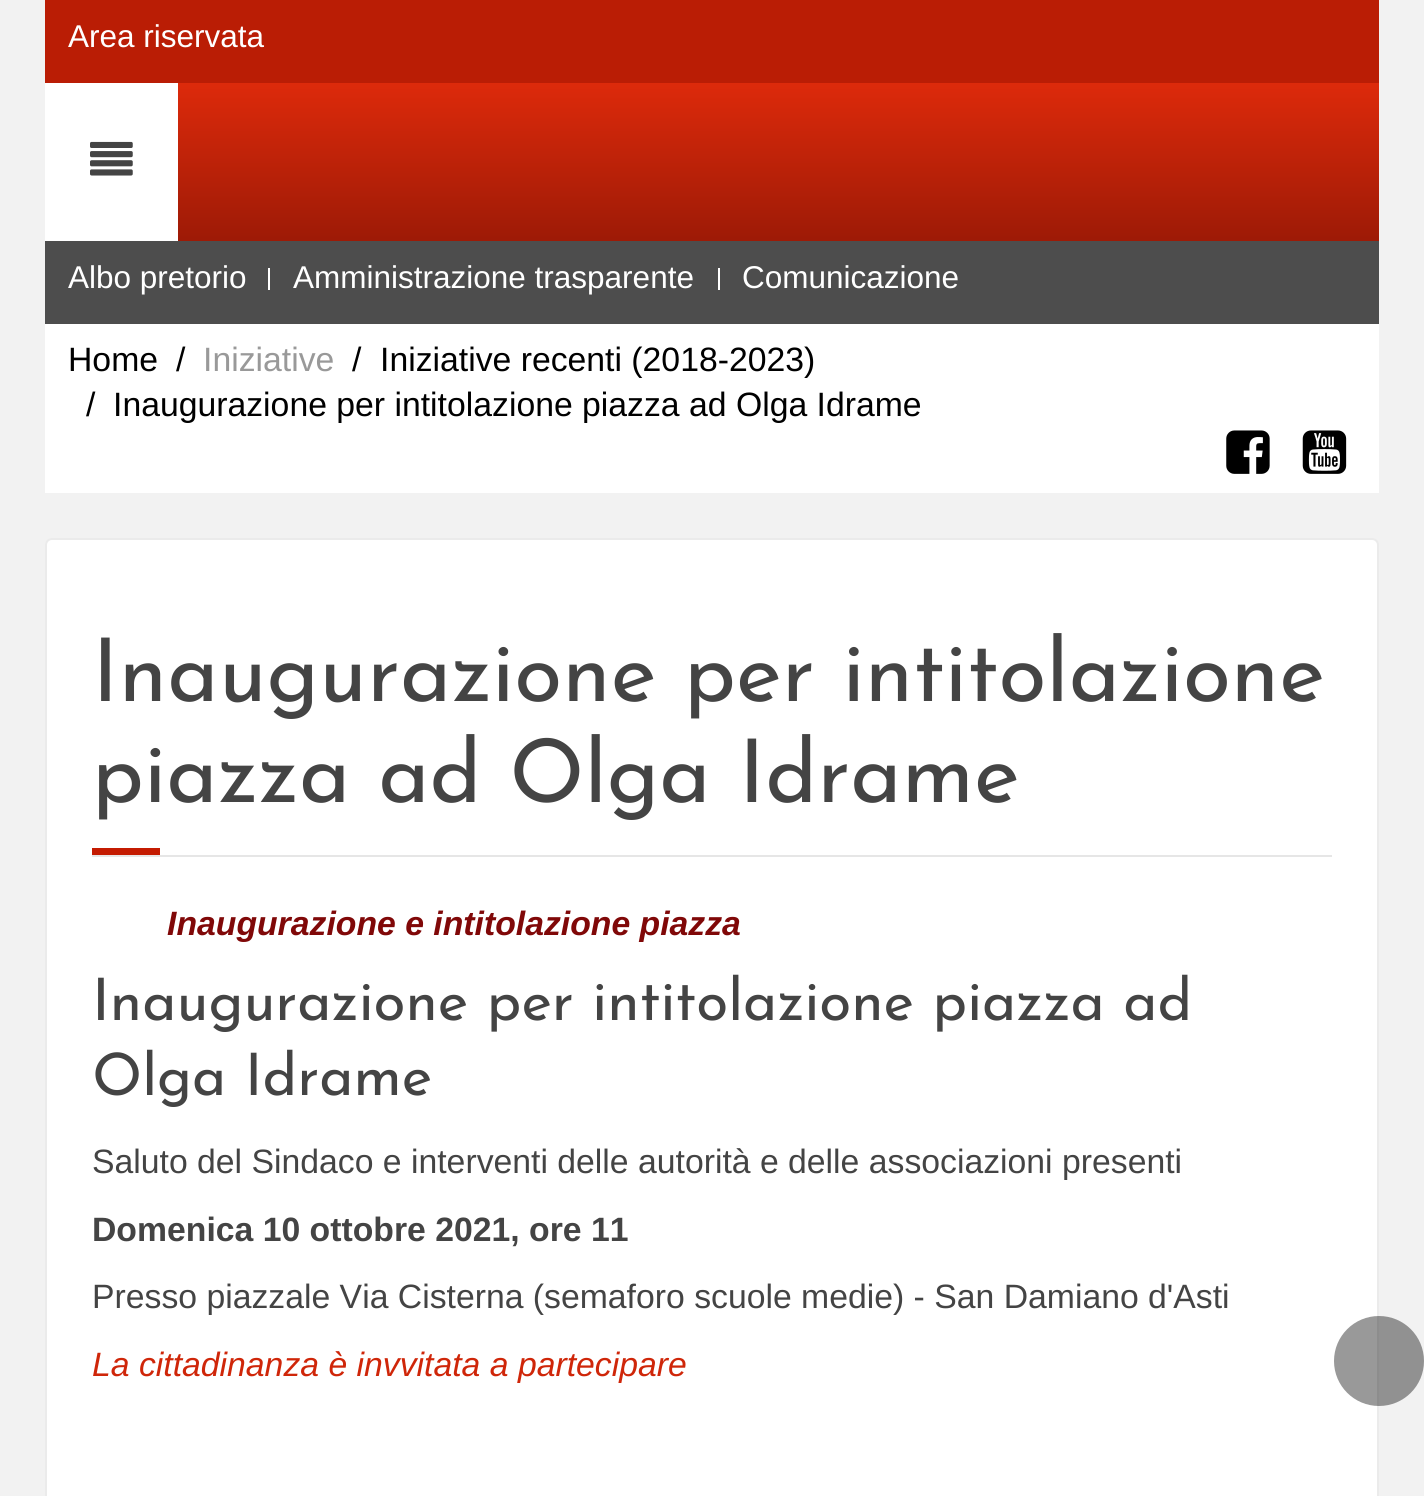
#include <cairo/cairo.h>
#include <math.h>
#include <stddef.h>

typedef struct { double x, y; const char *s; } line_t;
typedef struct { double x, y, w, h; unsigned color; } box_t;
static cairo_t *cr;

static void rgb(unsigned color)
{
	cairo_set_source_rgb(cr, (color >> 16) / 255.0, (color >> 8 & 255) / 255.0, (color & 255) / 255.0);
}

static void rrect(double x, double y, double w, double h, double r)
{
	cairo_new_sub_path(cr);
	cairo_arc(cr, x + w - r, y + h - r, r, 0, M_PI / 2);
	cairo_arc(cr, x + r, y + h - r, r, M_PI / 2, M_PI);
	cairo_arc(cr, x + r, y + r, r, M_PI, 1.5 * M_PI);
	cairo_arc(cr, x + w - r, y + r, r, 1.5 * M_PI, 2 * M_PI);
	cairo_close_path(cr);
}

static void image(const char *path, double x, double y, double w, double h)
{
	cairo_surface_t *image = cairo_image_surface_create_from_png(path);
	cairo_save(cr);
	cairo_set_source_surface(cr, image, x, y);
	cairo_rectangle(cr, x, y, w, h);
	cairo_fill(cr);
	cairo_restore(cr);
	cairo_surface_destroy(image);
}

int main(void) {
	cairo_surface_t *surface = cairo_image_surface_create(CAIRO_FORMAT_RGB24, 1424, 1496);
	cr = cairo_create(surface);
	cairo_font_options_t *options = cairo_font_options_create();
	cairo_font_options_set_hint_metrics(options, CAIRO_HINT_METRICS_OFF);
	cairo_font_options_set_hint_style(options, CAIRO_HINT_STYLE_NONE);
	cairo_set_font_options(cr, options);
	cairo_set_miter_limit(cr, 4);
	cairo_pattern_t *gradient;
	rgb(0xf2f2f2);
	cairo_paint(cr);
	rgb(0xba1d05);
	cairo_rectangle(cr, 45, 0, 1334, 83);
	cairo_fill(cr);
	gradient = cairo_pattern_create_linear(712, 83, 712, 241);
	cairo_pattern_add_color_stop_rgba(gradient, 0, 0.867, 0.165, 0.043, 1);
	cairo_pattern_add_color_stop_rgba(gradient, 1, 0.616, 0.102, 0.024, 1);
	cairo_set_source(cr, gradient);
	cairo_pattern_destroy(gradient);
	cairo_rectangle(cr, 178, 83, 1201, 158);
	cairo_fill(cr);
	rgb(0xffffff);
	cairo_rectangle(cr, 45, 83, 133, 158);
	cairo_fill(cr);
	image("img/1.png", 90, 141, 43, 35);
	{
		static const box_t items[] = {
			{45, 241, 1334, 83, 0x4d4d4d},
			{268, 268, 2, 22, 0xffffff},
			{718, 268, 2, 22, 0xffffff},
			{45, 324, 1334, 169, 0xffffff},
		};
		for (size_t i = 0; i < sizeof items / sizeof *items; i++) {
			rgb(items[i].color);
			cairo_rectangle(cr, items[i].x, items[i].y, items[i].w, items[i].h);
			cairo_fill(cr);
		}
	}
	image("img/2.png", 1226, 430, 44, 44);
	image("img/3.png", 1302, 430, 45, 44);
	rrect(45, 538, 1334, 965, 7);
	cairo_fill(cr);
	rrect(46, 539, 1332, 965, 6);
	cairo_set_source_rgba(cr, 0, 0, 0, 0.08);
	cairo_stroke(cr);
	rgb(0xe6e6e6);
	cairo_rectangle(cr, 92, 855, 1240, 2);
	cairo_fill(cr);
	rgb(0xc41b01);
	cairo_rectangle(cr, 92, 848, 68, 7);
	cairo_fill(cr);
	cairo_set_source_rgba(cr, 0, 0, 0, 0.4);
	cairo_arc(cr, 1379, 1361, 45, 0, 2 * M_PI);
	cairo_fill(cr);
	cairo_select_font_face(cr, "Liberation Sans", CAIRO_FONT_SLANT_NORMAL, CAIRO_FONT_WEIGHT_NORMAL);
	cairo_set_font_size(cr, 31.5);
	rgb(0xffffff);
	{
		static const line_t items[] = {
			{68, 47, "Area riservata"},
			{68, 288, "Albo pretorio"},
			{293, 288, "Amministrazione trasparente"},
			{742, 288, "Comunicazione"},
		};
		for (size_t i = 0; i < sizeof items / sizeof *items; i++) {
			cairo_move_to(cr, items[i].x, items[i].y);
			cairo_show_text(cr, items[i].s);
		}
	}
	cairo_set_font_size(cr, 33.75);
	rgb(0x000000);
	cairo_move_to(cr, 68, 371);
	cairo_show_text(cr, "Home");
	cairo_move_to(cr, 176, 371);
	cairo_show_text(cr, "/");
	rgb(0x999999);
	cairo_move_to(cr, 203, 371);
	cairo_show_text(cr, "Iniziative");
	rgb(0x000000);
	{
		static const line_t items[] = {
			{352, 371, "/"},
			{380, 371, "Iniziative recenti (2018-2023)"},
			{86, 416, "/"},
			{113, 416, "Inaugurazione per intitolazione piazza ad Olga Idrame"},
		};
		for (size_t i = 0; i < sizeof items / sizeof *items; i++) {
			cairo_move_to(cr, items[i].x, items[i].y);
			cairo_show_text(cr, items[i].s);
		}
	}
	cairo_select_font_face(cr, "Josefin Sans Thin", CAIRO_FONT_SLANT_NORMAL, CAIRO_FONT_WEIGHT_NORMAL);
	cairo_set_font_size(cr, 87.75);
	rgb(0x444444);
	cairo_move_to(cr, 92, 701);
	cairo_show_text(cr, "Inaugurazione per intitolazione");
	cairo_move_to(cr, 92, 802);
	cairo_show_text(cr, "piazza ad Olga Idrame");
	cairo_select_font_face(cr, "Liberation Sans", CAIRO_FONT_SLANT_ITALIC, CAIRO_FONT_WEIGHT_BOLD);
	cairo_set_font_size(cr, 33.75);
	rgb(0x800808);
	cairo_move_to(cr, 167, 935);
	cairo_show_text(cr, "Inaugurazione e intitolazione piazza");
	cairo_select_font_face(cr, "Josefin Sans Thin", CAIRO_FONT_SLANT_NORMAL, CAIRO_FONT_WEIGHT_NORMAL);
	cairo_set_font_size(cr, 58.5);
	rgb(0x444444);
	cairo_move_to(cr, 92, 1020);
	cairo_show_text(cr, "Inaugurazione per intitolazione piazza ad");
	cairo_move_to(cr, 92, 1095);
	cairo_show_text(cr, "Olga Idrame");
	cairo_select_font_face(cr, "Liberation Sans", CAIRO_FONT_SLANT_NORMAL, CAIRO_FONT_WEIGHT_NORMAL);
	cairo_set_font_size(cr, 33.75);
	cairo_move_to(cr, 92, 1173);
	cairo_show_text(cr, "Saluto del Sindaco e interventi delle autorità e delle associazioni presenti");
	cairo_select_font_face(cr, "Liberation Sans", CAIRO_FONT_SLANT_NORMAL, CAIRO_FONT_WEIGHT_BOLD);
	cairo_move_to(cr, 92, 1241);
	cairo_show_text(cr, "Domenica 10 ottobre 2021, ore 11");
	cairo_select_font_face(cr, "Liberation Sans", CAIRO_FONT_SLANT_NORMAL, CAIRO_FONT_WEIGHT_NORMAL);
	cairo_move_to(cr, 92, 1308);
	cairo_show_text(cr, "Presso piazzale Via Cisterna (semaforo scuole medie) - San Damiano d'Asti");
	cairo_select_font_face(cr, "Liberation Sans", CAIRO_FONT_SLANT_ITALIC, CAIRO_FONT_WEIGHT_NORMAL);
	rgb(0xcf2609);
	cairo_move_to(cr, 92, 1376);
	cairo_show_text(cr, "La cittadinanza è invvitata a partecipare");
	cairo_surface_write_to_png(surface, "page.png");
	cairo_font_options_destroy(options);
	cairo_destroy(cr);
	cairo_surface_destroy(surface);
	return 0;
}
